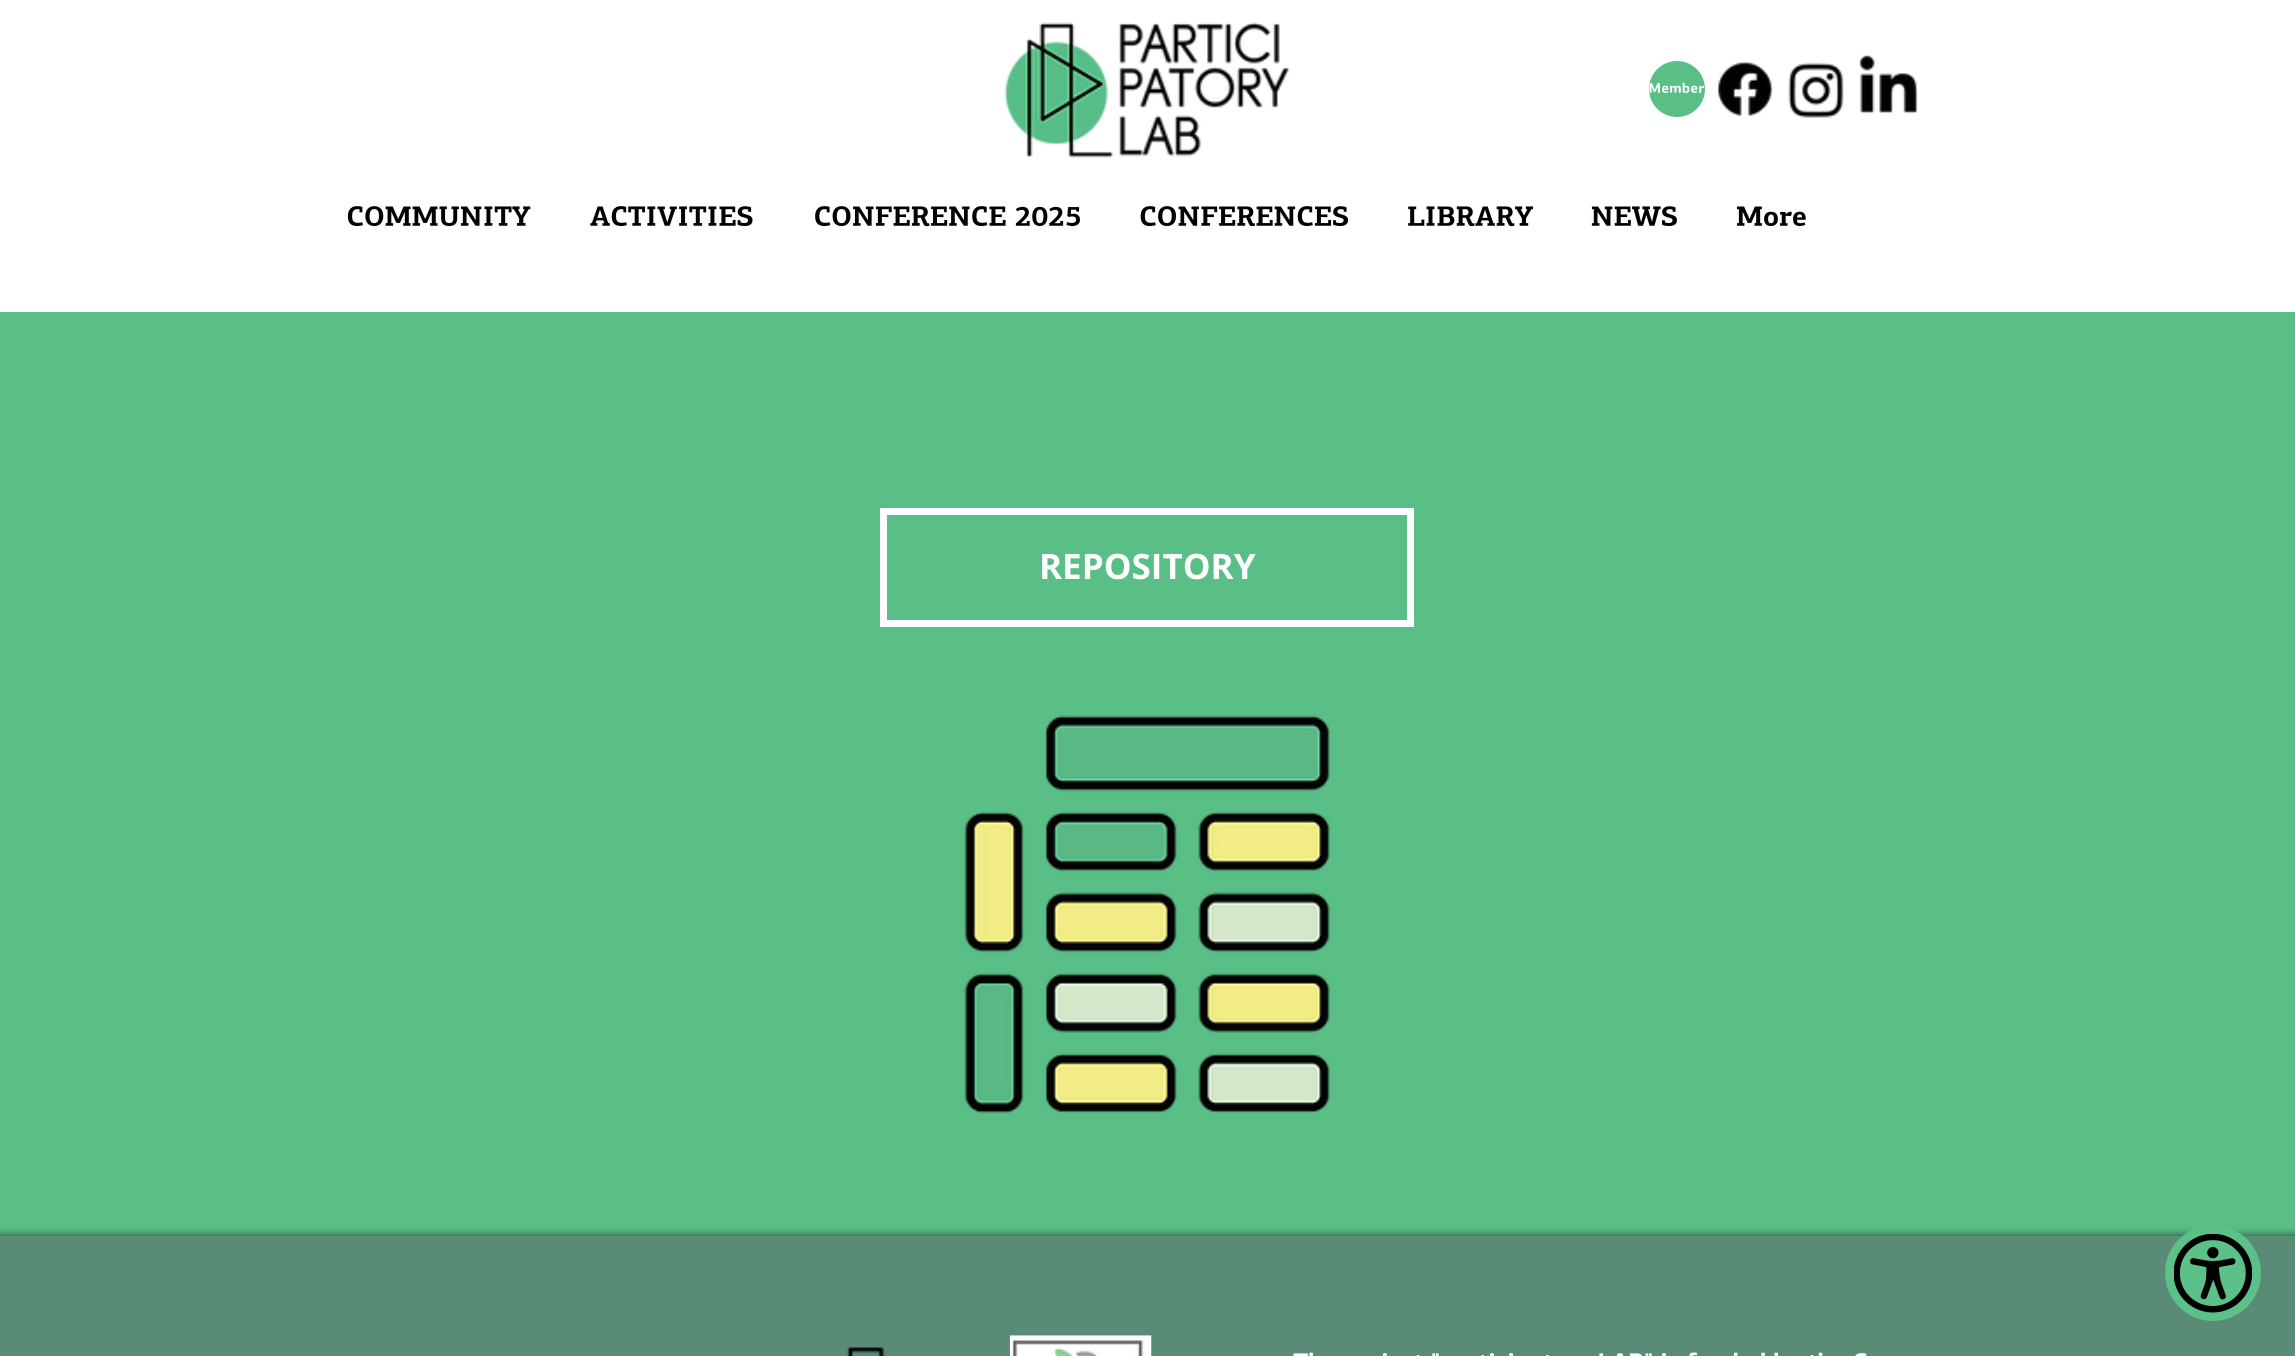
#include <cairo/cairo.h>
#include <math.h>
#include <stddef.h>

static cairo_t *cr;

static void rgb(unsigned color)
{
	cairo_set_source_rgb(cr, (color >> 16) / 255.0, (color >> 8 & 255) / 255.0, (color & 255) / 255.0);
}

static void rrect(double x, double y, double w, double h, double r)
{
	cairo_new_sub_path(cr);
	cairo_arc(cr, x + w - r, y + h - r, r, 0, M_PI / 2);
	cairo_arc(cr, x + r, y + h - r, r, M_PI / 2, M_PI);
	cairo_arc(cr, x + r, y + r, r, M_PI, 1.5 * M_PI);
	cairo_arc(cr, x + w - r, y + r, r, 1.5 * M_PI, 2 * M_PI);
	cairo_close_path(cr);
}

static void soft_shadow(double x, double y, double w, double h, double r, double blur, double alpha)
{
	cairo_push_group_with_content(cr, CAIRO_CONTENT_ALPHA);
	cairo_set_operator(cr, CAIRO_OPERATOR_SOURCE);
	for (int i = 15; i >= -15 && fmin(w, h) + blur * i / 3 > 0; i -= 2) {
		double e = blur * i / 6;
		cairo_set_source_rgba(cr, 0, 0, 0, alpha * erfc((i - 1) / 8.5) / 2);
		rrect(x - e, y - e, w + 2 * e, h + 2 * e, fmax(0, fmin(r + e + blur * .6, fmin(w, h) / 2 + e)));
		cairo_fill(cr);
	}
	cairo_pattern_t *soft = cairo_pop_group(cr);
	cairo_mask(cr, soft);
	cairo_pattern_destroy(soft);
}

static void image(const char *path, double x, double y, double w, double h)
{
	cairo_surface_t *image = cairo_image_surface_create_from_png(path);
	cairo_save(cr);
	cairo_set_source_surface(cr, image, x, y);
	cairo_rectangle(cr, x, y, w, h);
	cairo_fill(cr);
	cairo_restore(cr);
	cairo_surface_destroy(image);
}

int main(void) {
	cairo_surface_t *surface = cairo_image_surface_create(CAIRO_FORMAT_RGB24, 2295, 1356);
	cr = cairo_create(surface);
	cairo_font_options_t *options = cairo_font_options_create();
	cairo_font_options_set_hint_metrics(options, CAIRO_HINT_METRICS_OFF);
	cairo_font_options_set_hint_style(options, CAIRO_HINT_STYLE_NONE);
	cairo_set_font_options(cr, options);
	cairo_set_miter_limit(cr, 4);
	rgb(0xffffff);
	cairo_paint(cr);
	image("img/1.png", 1004, 22, 286, 136);
	rgb(0x5abe87);
	cairo_arc(cr, 1677, 89, 28, 0, 2 * M_PI);
	cairo_fill(cr);
	image("img/2.png", 1649, 82, 56, 11);
	image("img/3.png", 1717, 61, 56, 55);
	image("img/4.png", 1788, 62, 56, 56);
	image("img/5.png", 1859, 55, 59, 59);
	image("img/6.png", 347, 206, 184, 20);
	image("img/7.png", 590, 206, 163, 20);
	image("img/8.png", 815, 206, 265, 21);
	image("img/9.png", 1140, 206, 208, 21);
	image("img/10.png", 1408, 206, 125, 21);
	image("img/11.png", 1591, 206, 86, 20);
	image("img/12.png", 1736, 206, 70, 20);
	cairo_rectangle(cr, 0, 312, 2295, 924);
	cairo_fill(cr);
	cairo_rectangle(cr, 883.5, 511.5, 527, 112);
	rgb(0xffffff);
	cairo_set_line_width(cr, 7);
	cairo_stroke(cr);
	image("img/13.png", 964, 715, 367, 399);
	rgb(0x000000);
	soft_shadow(0, 1236, 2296, 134, 0, 4.5, 0.7);
	rgb(0x5a8b77);
	cairo_rectangle(cr, 0, 1236, 2295, 120);
	cairo_fill(cr);
	image("img/14.png", 846, 1347, 39, 9);
	image("img/15.png", 1009, 1335, 143, 21);
	image("img/16.png", 1293, 1352, 574, 4);
	rgb(0x5cc089);
	cairo_arc(cr, 2213, 1273, 48, 0, 2 * M_PI);
	cairo_fill(cr);
	image("img/17.png", 2174, 1234, 78, 79);
	cairo_select_font_face(cr, "Open Sans", CAIRO_FONT_SLANT_NORMAL, CAIRO_FONT_WEIGHT_BOLD);
	cairo_set_font_size(cr, 35);
	rgb(0xffffff);
	cairo_move_to(cr, 1039, 579);
	cairo_show_text(cr, "REPOSITORY");
	cairo_surface_write_to_png(surface, "page.png");
	cairo_font_options_destroy(options);
	cairo_destroy(cr);
	cairo_surface_destroy(surface);
	return 0;
}
